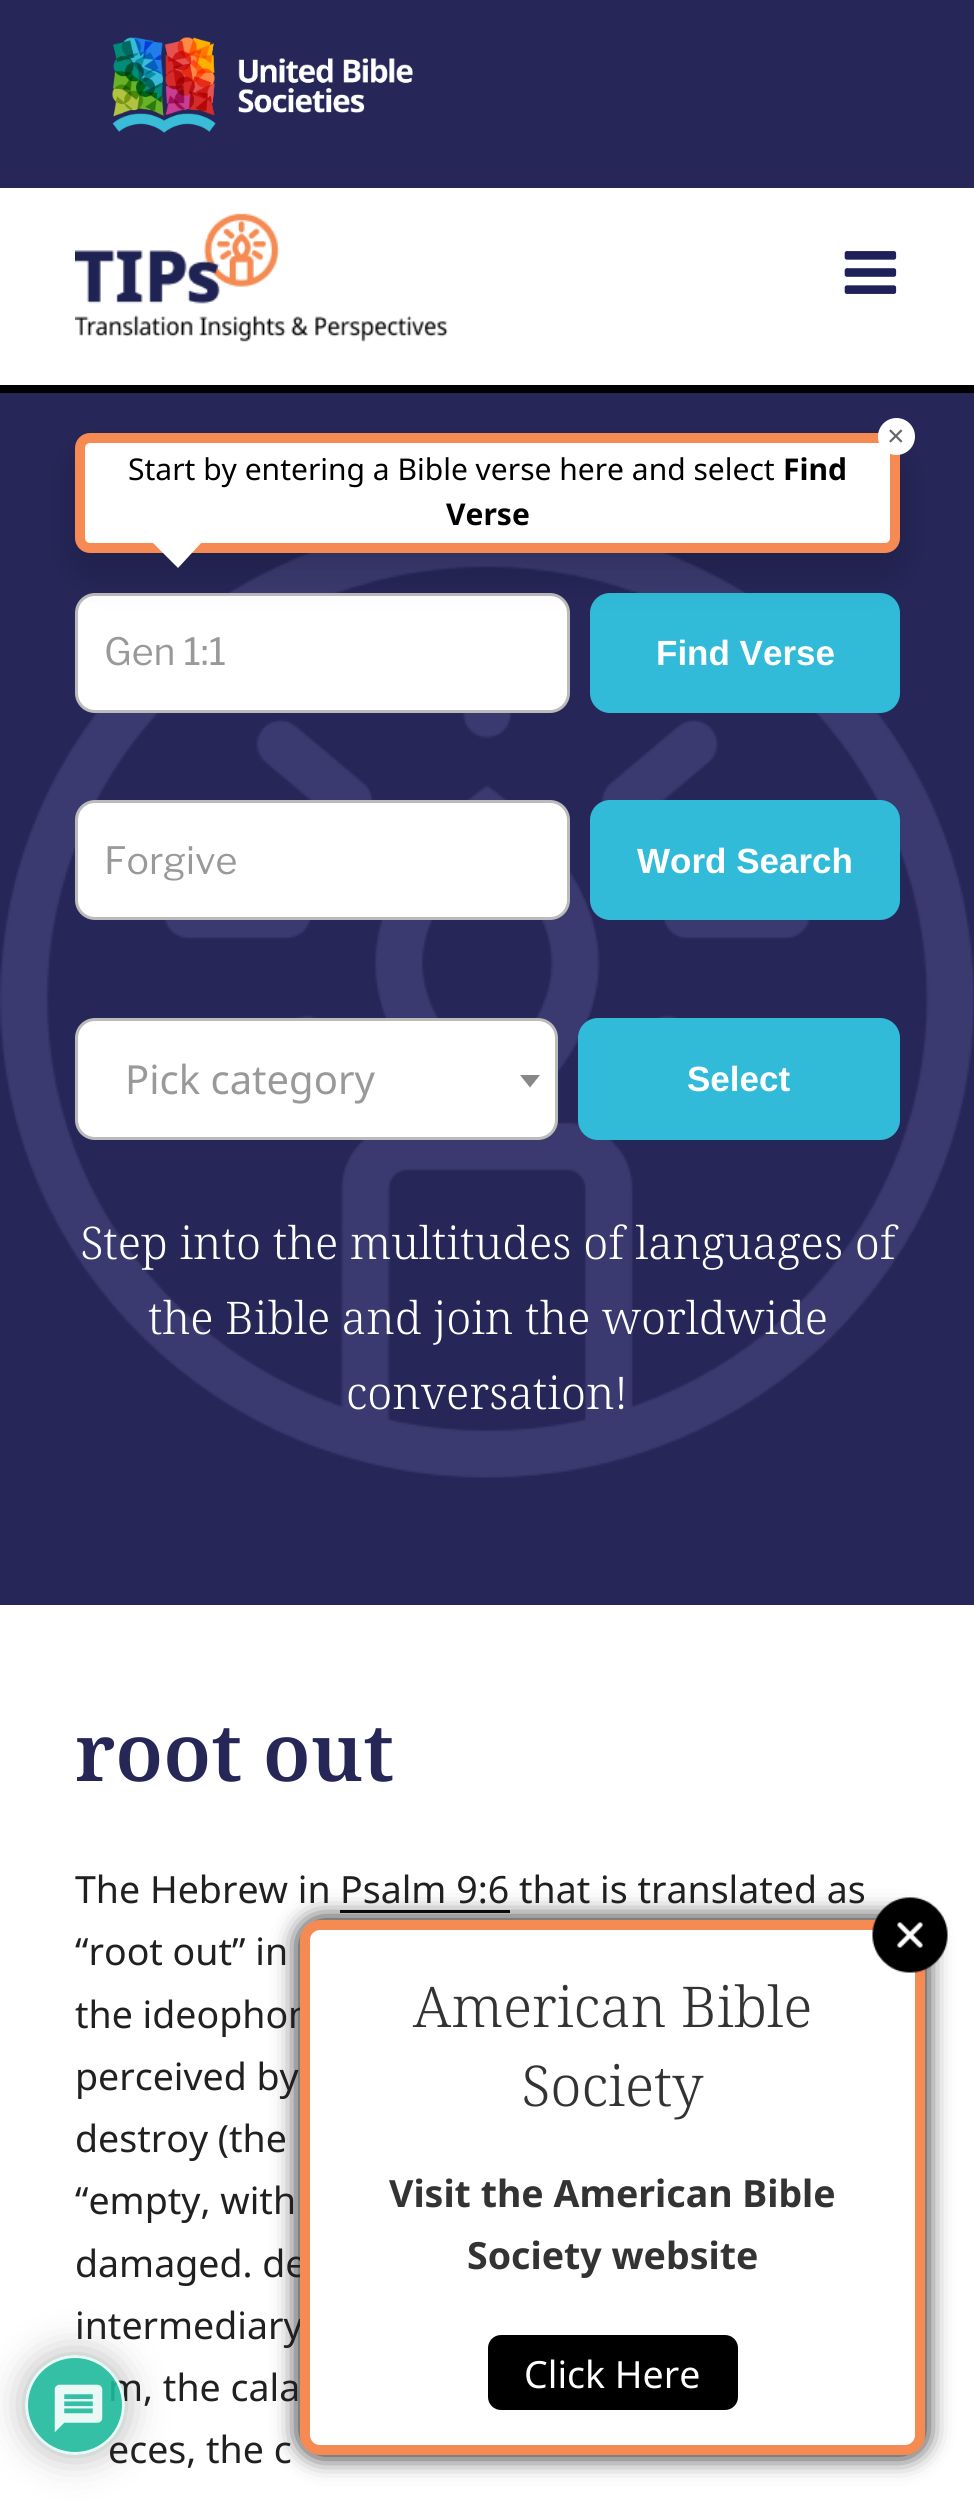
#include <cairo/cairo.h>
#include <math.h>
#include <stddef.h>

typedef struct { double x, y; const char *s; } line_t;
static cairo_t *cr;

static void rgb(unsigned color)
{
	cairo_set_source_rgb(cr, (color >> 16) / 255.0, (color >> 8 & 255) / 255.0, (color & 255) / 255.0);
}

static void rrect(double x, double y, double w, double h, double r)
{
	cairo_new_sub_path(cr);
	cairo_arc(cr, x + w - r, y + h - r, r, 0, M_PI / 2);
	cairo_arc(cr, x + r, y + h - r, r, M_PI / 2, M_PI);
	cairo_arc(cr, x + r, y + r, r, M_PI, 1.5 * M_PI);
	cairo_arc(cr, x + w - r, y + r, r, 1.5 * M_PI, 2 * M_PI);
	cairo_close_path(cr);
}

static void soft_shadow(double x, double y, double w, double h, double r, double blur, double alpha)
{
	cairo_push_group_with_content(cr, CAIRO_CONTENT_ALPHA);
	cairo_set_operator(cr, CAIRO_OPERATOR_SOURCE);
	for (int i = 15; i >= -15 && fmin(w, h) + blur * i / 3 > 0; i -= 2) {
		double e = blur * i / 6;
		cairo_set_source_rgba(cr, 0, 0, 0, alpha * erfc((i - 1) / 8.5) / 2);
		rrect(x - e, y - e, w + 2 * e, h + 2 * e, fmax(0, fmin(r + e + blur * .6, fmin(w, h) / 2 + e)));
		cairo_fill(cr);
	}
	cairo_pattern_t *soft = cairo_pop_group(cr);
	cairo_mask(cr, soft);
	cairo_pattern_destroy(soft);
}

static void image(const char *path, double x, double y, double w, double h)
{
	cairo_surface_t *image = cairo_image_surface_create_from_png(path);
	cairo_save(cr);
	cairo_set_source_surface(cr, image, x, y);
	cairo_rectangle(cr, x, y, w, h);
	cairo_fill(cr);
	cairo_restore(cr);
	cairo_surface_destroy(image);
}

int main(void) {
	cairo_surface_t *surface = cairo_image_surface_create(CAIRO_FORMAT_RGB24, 974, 2504);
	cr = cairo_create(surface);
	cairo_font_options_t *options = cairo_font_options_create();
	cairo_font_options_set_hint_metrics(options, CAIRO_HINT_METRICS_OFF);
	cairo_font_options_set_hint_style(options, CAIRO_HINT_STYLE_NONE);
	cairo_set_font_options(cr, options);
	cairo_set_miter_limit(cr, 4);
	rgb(0xffffff);
	cairo_paint(cr);
	rgb(0x000000);
	cairo_rectangle(cr, 0, 385, 974, 8);
	cairo_fill(cr);
	rgb(0x262658);
	cairo_rectangle(cr, 0, 0, 974, 188);
	cairo_fill(cr);
	image("img/1.png", 112, 37, 301, 96);
	image("img/2.png", 75, 213, 373, 129);
	image("img/3.png", 844, 251, 53, 43);
	cairo_rectangle(cr, 0, 393, 974, 1212);
	cairo_fill(cr);
	image("img/4.png", 0, 553, 974, 925);
	rgb(0xffffff);
	rrect(76.5, 594.5, 492, 117, 18.5);
	cairo_fill_preserve(cr);
	rgb(0xbbbbbb);
	cairo_set_line_width(cr, 3);
	cairo_stroke(cr);
	rgb(0x31bbd8);
	rrect(590, 593, 310, 120, 20);
	cairo_fill(cr);
	rgb(0x000000);
	soft_shadow(75, 453, 825, 120, 15, 20, 0.15);
	rgb(0xffffff);
	rrect(80, 438, 815, 110, 10);
	cairo_fill_preserve(cr);
	rgb(0xf58a52);
	cairo_set_line_width(cr, 10);
	cairo_stroke(cr);
	rgb(0xffffff);
	cairo_arc(cr, 896.5, 436.5, 18.5, 0, 2 * M_PI);
	cairo_fill(cr);
	cairo_new_path(cr);
	cairo_move_to(cr, 152, 542);
	cairo_line_to(cr, 202, 542);
	cairo_line_to(cr, 178, 568);
	cairo_close_path(cr);
	cairo_fill(cr);
	rrect(76.5, 801.5, 492, 117, 18.5);
	cairo_fill_preserve(cr);
	rgb(0xbbbbbb);
	cairo_set_line_width(cr, 3);
	cairo_stroke(cr);
	rgb(0x31bbd8);
	rrect(590, 800, 310, 120, 20);
	cairo_fill(cr);
	rgb(0xffffff);
	rrect(76.5, 1019.5, 480, 119, 18.5);
	cairo_fill_preserve(cr);
	rgb(0xbbbbbb);
	cairo_stroke(cr);
	rgb(0x888888);
	cairo_new_path(cr);
	cairo_move_to(cr, 520, 1075);
	cairo_line_to(cr, 540, 1075);
	cairo_line_to(cr, 530, 1087.5);
	cairo_close_path(cr);
	cairo_fill(cr);
	rgb(0x31bbd8);
	rrect(578, 1018, 322, 122, 20);
	cairo_fill(cr);
	rgb(0x0f0f0f);
	cairo_rectangle(cr, 340, 1910, 170, 3);
	cairo_fill(cr);
	cairo_save(cr);
	cairo_set_fill_rule(cr, CAIRO_FILL_RULE_EVEN_ODD);
	cairo_new_path(cr);
	cairo_move_to(cr, 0, 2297);
	cairo_line_to(cr, 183, 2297);
	cairo_line_to(cr, 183, 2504);
	cairo_line_to(cr, 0, 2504);
	cairo_close_path(cr);
	cairo_move_to(cr, 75, 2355);
	cairo_curve_to(cr, 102.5, 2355, 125, 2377.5, 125, 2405);
	cairo_curve_to(cr, 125, 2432.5, 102.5, 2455, 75, 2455);
	cairo_curve_to(cr, 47.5, 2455, 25, 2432.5, 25, 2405);
	cairo_curve_to(cr, 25, 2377.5, 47.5, 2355, 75, 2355);
	cairo_close_path(cr);
	cairo_clip(cr);
	rgb(0xaaaaaa);
	soft_shadow(25, 2355, 100, 100, 50, 19, 0.9);
	cairo_restore(cr);
	rgb(0x000000);
	soft_shadow(300, 1920, 625, 535, 20, 12.5, 1);
	cairo_select_font_face(cr, "Liberation Sans", CAIRO_FONT_SLANT_NORMAL, CAIRO_FONT_WEIGHT_NORMAL);
	cairo_set_font_size(cr, 30);
	rgb(0x666666);
	cairo_move_to(cr, 887, 446);
	cairo_show_text(cr, "×");
	cairo_select_font_face(cr, "Noto Sans", CAIRO_FONT_SLANT_NORMAL, CAIRO_FONT_WEIGHT_NORMAL);
	rgb(0x000000);
	cairo_move_to(cr, 128, 480);
	cairo_show_text(cr, "Start by entering a Bible verse here and select");
	cairo_select_font_face(cr, "Noto Sans", CAIRO_FONT_SLANT_NORMAL, CAIRO_FONT_WEIGHT_BOLD);
	cairo_move_to(cr, 783, 480);
	cairo_show_text(cr, "Find");
	cairo_move_to(cr, 446, 525);
	cairo_show_text(cr, "Verse");
	cairo_select_font_face(cr, "Libre Franklin", CAIRO_FONT_SLANT_NORMAL, CAIRO_FONT_WEIGHT_NORMAL);
	cairo_set_font_size(cr, 37.5);
	rgb(0x999999);
	cairo_move_to(cr, 104, 665);
	cairo_show_text(cr, "Gen 1:1");
	cairo_select_font_face(cr, "Liberation Sans", CAIRO_FONT_SLANT_NORMAL, CAIRO_FONT_WEIGHT_BOLD);
	cairo_set_font_size(cr, 35);
	rgb(0xffffff);
	cairo_move_to(cr, 656, 665);
	cairo_show_text(cr, "Find Verse");
	cairo_select_font_face(cr, "Libre Franklin", CAIRO_FONT_SLANT_NORMAL, CAIRO_FONT_WEIGHT_NORMAL);
	cairo_set_font_size(cr, 37.5);
	rgb(0x999999);
	cairo_move_to(cr, 104, 874);
	cairo_show_text(cr, "Forgive");
	cairo_select_font_face(cr, "Liberation Sans", CAIRO_FONT_SLANT_NORMAL, CAIRO_FONT_WEIGHT_BOLD);
	cairo_set_font_size(cr, 35);
	rgb(0xffffff);
	cairo_move_to(cr, 637, 873);
	cairo_show_text(cr, "Word Search");
	cairo_select_font_face(cr, "Noto Sans", CAIRO_FONT_SLANT_NORMAL, CAIRO_FONT_WEIGHT_NORMAL);
	cairo_set_font_size(cr, 40);
	rgb(0x999999);
	cairo_move_to(cr, 125, 1094);
	cairo_show_text(cr, "Pick category");
	cairo_select_font_face(cr, "Liberation Sans", CAIRO_FONT_SLANT_NORMAL, CAIRO_FONT_WEIGHT_BOLD);
	cairo_set_font_size(cr, 35);
	rgb(0xffffff);
	cairo_move_to(cr, 687, 1091);
	cairo_show_text(cr, "Select");
	cairo_select_font_face(cr, "Noto Serif Light", CAIRO_FONT_SLANT_NORMAL, CAIRO_FONT_WEIGHT_NORMAL);
	cairo_set_font_size(cr, 45);
	{
		static const line_t items[] = {
			{80, 1259, "Step into the multitudes of languages of"},
			{148, 1334, "the Bible and join the worldwide"},
			{346, 1409, "conversation!"},
		};
		for (size_t i = 0; i < sizeof items / sizeof *items; i++) {
			cairo_move_to(cr, items[i].x, items[i].y);
			cairo_show_text(cr, items[i].s);
		}
	}
	cairo_select_font_face(cr, "Noto Serif SemiBold", CAIRO_FONT_SLANT_NORMAL, CAIRO_FONT_WEIGHT_NORMAL);
	cairo_set_font_size(cr, 80);
	rgb(0x262657);
	cairo_move_to(cr, 75, 1781);
	cairo_show_text(cr, "root out");
	cairo_select_font_face(cr, "Noto Sans", CAIRO_FONT_SLANT_NORMAL, CAIRO_FONT_WEIGHT_NORMAL);
	cairo_set_font_size(cr, 37.5);
	rgb(0x202020);
	{
		static const line_t items[] = {
			{75, 1903, "The Hebrew in"},
			{340, 1903, "Psalm 9:6"},
			{519, 1903, "that is translated as"},
			{75, 1965, "“root out” in"},
			{75, 2028, "the ideophon"},
			{75, 2090, "perceived by"},
			{75, 2152, "destroy (the"},
			{75, 2214, "“empty, with"},
			{75, 2277, "damaged. de"},
			{75, 2339, "intermediary"},
			{108, 2401, "m, the cala"},
			{108, 2463, "eces, the c"},
		};
		for (size_t i = 0; i < sizeof items / sizeof *items; i++) {
			cairo_move_to(cr, items[i].x, items[i].y);
			cairo_show_text(cr, items[i].s);
		}
	}
	cairo_set_source_rgba(cr, 0.114, 0.725, 0.604, 0.9);
	cairo_new_path(cr);
	cairo_arc(cr, 75, 2405, 50, 0, 2 * M_PI);
	cairo_fill(cr);
	cairo_arc(cr, 75, 2405, 48.5, 0, 2 * M_PI);
	cairo_set_source_rgba(cr, 1, 1, 1, 0.9);
	cairo_stroke(cr);
	image("img/5.png", 54, 2384, 49, 49);
	rgb(0xffffff);
	rrect(305, 1925, 615, 525, 15);
	cairo_fill_preserve(cr);
	rgb(0xf58a52);
	cairo_set_line_width(cr, 10);
	cairo_stroke(cr);
	image("img/6.png", 872, 1897, 76, 76);
	cairo_select_font_face(cr, "Noto Serif Light", CAIRO_FONT_SLANT_NORMAL, CAIRO_FONT_WEIGHT_NORMAL);
	cairo_set_font_size(cr, 56.25);
	rgb(0x333333);
	cairo_move_to(cr, 413, 2027);
	cairo_show_text(cr, "American Bible");
	cairo_move_to(cr, 521, 2106);
	cairo_show_text(cr, "Society");
	cairo_select_font_face(cr, "Noto Sans", CAIRO_FONT_SLANT_NORMAL, CAIRO_FONT_WEIGHT_BOLD);
	cairo_set_font_size(cr, 37.5);
	cairo_move_to(cr, 389, 2207);
	cairo_show_text(cr, "Visit the American Bible");
	cairo_move_to(cr, 467, 2269);
	cairo_show_text(cr, "Society website");
	rgb(0x000000);
	rrect(488, 2335, 250, 75, 13);
	cairo_fill(cr);
	cairo_select_font_face(cr, "Noto Sans", CAIRO_FONT_SLANT_NORMAL, CAIRO_FONT_WEIGHT_NORMAL);
	rgb(0xffffff);
	cairo_move_to(cr, 524, 2388);
	cairo_show_text(cr, "Click Here");
	cairo_surface_write_to_png(surface, "page.png");
	cairo_font_options_destroy(options);
	cairo_destroy(cr);
	cairo_surface_destroy(surface);
	return 0;
}
